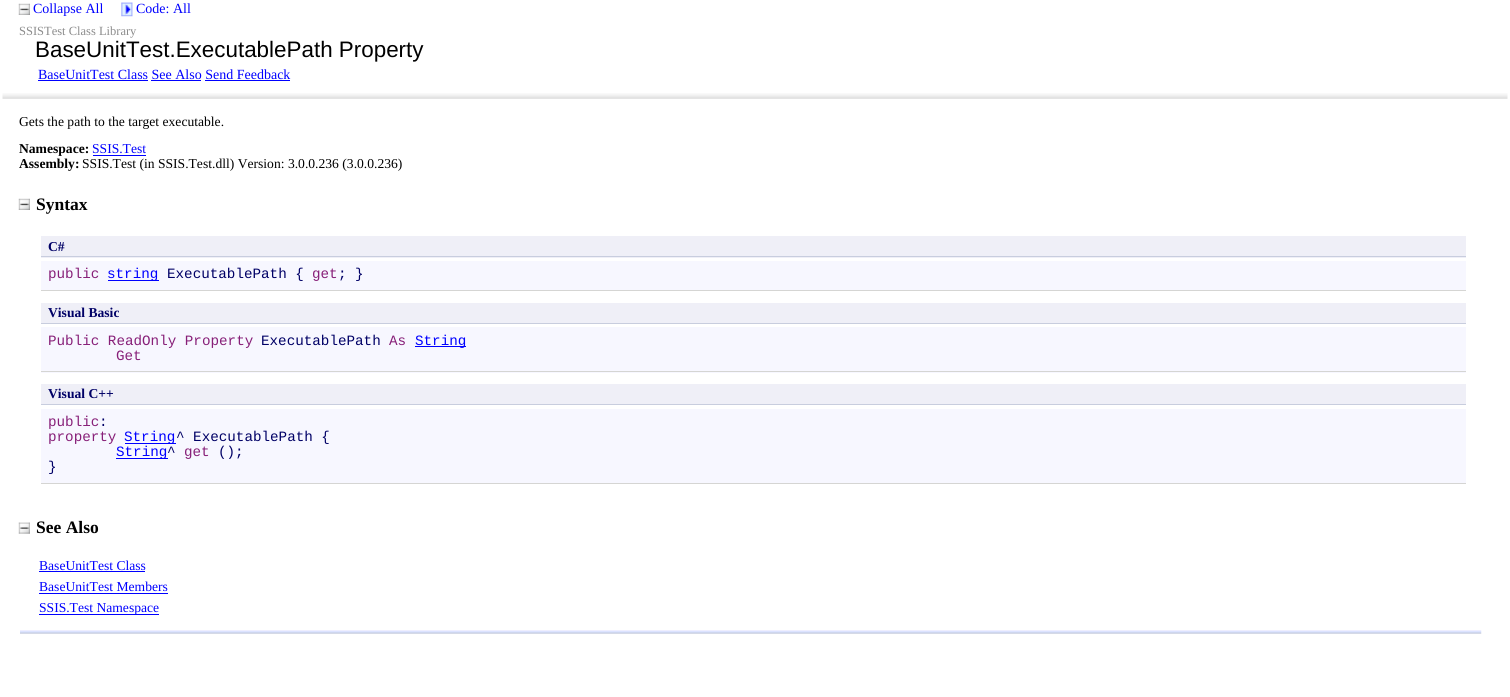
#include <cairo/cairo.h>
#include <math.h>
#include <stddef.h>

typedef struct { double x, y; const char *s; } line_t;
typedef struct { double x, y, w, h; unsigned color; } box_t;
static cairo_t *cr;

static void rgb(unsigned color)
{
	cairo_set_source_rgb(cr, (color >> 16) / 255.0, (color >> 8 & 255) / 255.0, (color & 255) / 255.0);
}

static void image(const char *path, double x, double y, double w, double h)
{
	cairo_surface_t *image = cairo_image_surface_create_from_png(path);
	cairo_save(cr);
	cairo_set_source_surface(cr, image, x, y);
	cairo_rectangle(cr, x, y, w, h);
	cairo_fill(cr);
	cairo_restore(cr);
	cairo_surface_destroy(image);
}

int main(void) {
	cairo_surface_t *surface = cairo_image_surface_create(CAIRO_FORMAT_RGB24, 1510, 697);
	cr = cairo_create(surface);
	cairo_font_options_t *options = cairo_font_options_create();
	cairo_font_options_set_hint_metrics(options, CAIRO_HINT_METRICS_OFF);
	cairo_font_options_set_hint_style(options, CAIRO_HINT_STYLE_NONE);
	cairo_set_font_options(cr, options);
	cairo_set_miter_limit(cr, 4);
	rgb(0xffffff);
	cairo_paint(cr);
	image("img/1.png", 18, 3, 12, 12);
	image("img/2.png", 121, 2, 12, 15);
	{
		static const box_t items[] = {
			{38, 80, 110, 1, 0x0000ff},
			{151, 80, 50, 1, 0x0000ff},
			{205, 80, 85, 1, 0x0000ff},
		};
		for (size_t i = 0; i < sizeof items / sizeof *items; i++) {
			rgb(items[i].color);
			cairo_rectangle(cr, items[i].x, items[i].y, items[i].w, items[i].h);
			cairo_fill(cr);
		}
	}
	image("img/3.png", 2, 93, 1506, 6);
	cairo_rectangle(cr, 93, 155, 53, 1);
	cairo_fill(cr);
	image("img/1.png", 18, 198, 12, 12);
	{
		static const box_t items[] = {
			{41, 236, 1425, 22, 0xefeff7},
			{41, 256, 1425, 1, 0xc8cdde},
			{41, 261, 1425, 29, 0xf7f7ff},
			{41, 290, 1425, 1, 0xd5d5d3},
			{108, 280, 51, 1, 0x0000ff},
			{41, 303, 1425, 20, 0xefeff7},
			{41, 323, 1425, 1, 0xc8cdde},
			{41, 327, 1425, 46, 0xf7f7ff},
			{41, 371, 1425, 1, 0xd5d5d3},
			{415, 346, 51, 1, 0x0000ff},
			{41, 384, 1425, 20, 0xefeff7},
			{41, 404, 1425, 1, 0xc8cdde},
			{41, 409, 1425, 74, 0xf7f7ff},
			{41, 483, 1425, 1, 0xd5d5d3},
			{125, 443, 51, 1, 0x0000ff},
			{116, 458, 52, 1, 0x0000ff},
		};
		for (size_t i = 0; i < sizeof items / sizeof *items; i++) {
			rgb(items[i].color);
			cairo_rectangle(cr, items[i].x, items[i].y, items[i].w, items[i].h);
			cairo_fill(cr);
		}
	}
	image("img/4.png", 18, 522, 12, 12);
	{
		static const box_t items[] = {
			{39, 571, 106, 1, 0x0000ff},
			{39, 593, 129, 1, 0x0000ff},
			{39, 614, 120, 1, 0x0000ff},
		};
		for (size_t i = 0; i < sizeof items / sizeof *items; i++) {
			rgb(items[i].color);
			cairo_rectangle(cr, items[i].x, items[i].y, items[i].w, items[i].h);
			cairo_fill(cr);
		}
	}
	image("img/5.png", 20, 630, 1462, 4);
	cairo_select_font_face(cr, "Liberation Serif", CAIRO_FONT_SLANT_NORMAL, CAIRO_FONT_WEIGHT_NORMAL);
	cairo_set_font_size(cr, 14);
	cairo_move_to(cr, 33, 13);
	cairo_show_text(cr, "Collapse All");
	cairo_move_to(cr, 136, 13);
	cairo_show_text(cr, "Code: All");
	cairo_set_font_size(cr, 12.5);
	rgb(0x8c8c8c);
	cairo_move_to(cr, 19, 35);
	cairo_show_text(cr, "SSISTest Class Library");
	cairo_select_font_face(cr, "Liberation Sans", CAIRO_FONT_SLANT_NORMAL, CAIRO_FONT_WEIGHT_NORMAL);
	cairo_set_font_size(cr, 22.4);
	rgb(0x000000);
	cairo_move_to(cr, 35, 57);
	cairo_show_text(cr, "BaseUnitTest.ExecutablePath Property");
	cairo_select_font_face(cr, "Liberation Serif", CAIRO_FONT_SLANT_NORMAL, CAIRO_FONT_WEIGHT_NORMAL);
	cairo_set_font_size(cr, 14);
	rgb(0x0000ff);
	cairo_move_to(cr, 38, 79);
	cairo_show_text(cr, "BaseUnitTest Class See Also Send Feedback");
	cairo_set_font_size(cr, 13.6);
	rgb(0x000000);
	cairo_move_to(cr, 19, 126);
	cairo_show_text(cr, "Gets the path to the target executable.");
	cairo_select_font_face(cr, "Liberation Serif", CAIRO_FONT_SLANT_NORMAL, CAIRO_FONT_WEIGHT_BOLD);
	cairo_move_to(cr, 19, 153);
	cairo_show_text(cr, "Namespace:");
	cairo_select_font_face(cr, "Liberation Serif", CAIRO_FONT_SLANT_NORMAL, CAIRO_FONT_WEIGHT_NORMAL);
	rgb(0x0000ff);
	cairo_move_to(cr, 92, 153);
	cairo_show_text(cr, "SSIS.Test");
	cairo_select_font_face(cr, "Liberation Serif", CAIRO_FONT_SLANT_NORMAL, CAIRO_FONT_WEIGHT_BOLD);
	rgb(0x000000);
	cairo_move_to(cr, 19, 168);
	cairo_show_text(cr, "Assembly:");
	cairo_select_font_face(cr, "Liberation Serif", CAIRO_FONT_SLANT_NORMAL, CAIRO_FONT_WEIGHT_NORMAL);
	cairo_move_to(cr, 82, 168);
	cairo_show_text(cr, "SSIS.Test (in SSIS.Test.dll) Version: 3.0.0.236 (3.0.0.236)");
	cairo_select_font_face(cr, "Liberation Serif", CAIRO_FONT_SLANT_NORMAL, CAIRO_FONT_WEIGHT_BOLD);
	cairo_set_font_size(cr, 17.5);
	cairo_move_to(cr, 36, 210);
	cairo_show_text(cr, "Syntax");
	cairo_set_font_size(cr, 13.6);
	rgb(0x000066);
	cairo_move_to(cr, 48, 251);
	cairo_show_text(cr, "C#");
	cairo_select_font_face(cr, "Liberation Mono", CAIRO_FONT_SLANT_NORMAL, CAIRO_FONT_WEIGHT_NORMAL);
	cairo_set_font_size(cr, 14.25);
	rgb(0x871f78);
	cairo_move_to(cr, 48, 278);
	cairo_show_text(cr, "public");
	rgb(0x0000ff);
	cairo_move_to(cr, 107, 278);
	cairo_show_text(cr, "string");
	rgb(0x000066);
	cairo_move_to(cr, 167, 278);
	cairo_show_text(cr, "ExecutablePath {");
	rgb(0x871f78);
	cairo_move_to(cr, 312, 278);
	cairo_show_text(cr, "get");
	rgb(0x000066);
	cairo_move_to(cr, 338, 278);
	cairo_show_text(cr, "; }");
	cairo_select_font_face(cr, "Liberation Serif", CAIRO_FONT_SLANT_NORMAL, CAIRO_FONT_WEIGHT_BOLD);
	cairo_set_font_size(cr, 13.6);
	cairo_move_to(cr, 48, 317);
	cairo_show_text(cr, "Visual Basic");
	cairo_select_font_face(cr, "Liberation Mono", CAIRO_FONT_SLANT_NORMAL, CAIRO_FONT_WEIGHT_NORMAL);
	cairo_set_font_size(cr, 14.25);
	rgb(0x871f78);
	cairo_move_to(cr, 48, 345);
	cairo_show_text(cr, "Public ReadOnly Property");
	rgb(0x000066);
	cairo_move_to(cr, 261, 345);
	cairo_show_text(cr, "ExecutablePath");
	rgb(0x871f78);
	cairo_move_to(cr, 389, 345);
	cairo_show_text(cr, "As");
	rgb(0x0000ff);
	cairo_move_to(cr, 415, 345);
	cairo_show_text(cr, "String");
	rgb(0x871f78);
	cairo_move_to(cr, 116, 360);
	cairo_show_text(cr, "Get");
	cairo_select_font_face(cr, "Liberation Serif", CAIRO_FONT_SLANT_NORMAL, CAIRO_FONT_WEIGHT_BOLD);
	cairo_set_font_size(cr, 13.6);
	rgb(0x000066);
	cairo_move_to(cr, 48, 398);
	cairo_show_text(cr, "Visual C++");
	cairo_select_font_face(cr, "Liberation Mono", CAIRO_FONT_SLANT_NORMAL, CAIRO_FONT_WEIGHT_NORMAL);
	cairo_set_font_size(cr, 14.25);
	rgb(0x871f78);
	cairo_move_to(cr, 48, 426);
	cairo_show_text(cr, "public");
	rgb(0x000066);
	cairo_move_to(cr, 99, 426);
	cairo_show_text(cr, ":");
	rgb(0x871f78);
	cairo_move_to(cr, 48, 441);
	cairo_show_text(cr, "property");
	rgb(0x0000ff);
	cairo_move_to(cr, 124, 441);
	cairo_show_text(cr, "String");
	rgb(0x000066);
	cairo_move_to(cr, 176, 441);
	cairo_show_text(cr, "^ ExecutablePath {");
	rgb(0x0000ff);
	cairo_move_to(cr, 116, 456);
	cairo_show_text(cr, "String");
	rgb(0x000066);
	cairo_move_to(cr, 167, 456);
	cairo_show_text(cr, "^");
	rgb(0x871f78);
	cairo_move_to(cr, 184, 456);
	cairo_show_text(cr, "get");
	rgb(0x000066);
	cairo_move_to(cr, 218, 456);
	cairo_show_text(cr, "();");
	cairo_move_to(cr, 48, 471);
	cairo_show_text(cr, "}");
	cairo_select_font_face(cr, "Liberation Serif", CAIRO_FONT_SLANT_NORMAL, CAIRO_FONT_WEIGHT_BOLD);
	cairo_set_font_size(cr, 17.5);
	rgb(0x000000);
	cairo_move_to(cr, 36, 533);
	cairo_show_text(cr, "See Also");
	cairo_select_font_face(cr, "Liberation Serif", CAIRO_FONT_SLANT_NORMAL, CAIRO_FONT_WEIGHT_NORMAL);
	cairo_set_font_size(cr, 13.6);
	rgb(0x0000ff);
	{
		static const line_t items[] = {
			{39, 570, "BaseUnitTest Class"},
			{39, 591, "BaseUnitTest Members"},
			{39, 612, "SSIS.Test Namespace"},
		};
		for (size_t i = 0; i < sizeof items / sizeof *items; i++) {
			cairo_move_to(cr, items[i].x, items[i].y);
			cairo_show_text(cr, items[i].s);
		}
	}
	cairo_surface_write_to_png(surface, "page.png");
	cairo_font_options_destroy(options);
	cairo_destroy(cr);
	cairo_surface_destroy(surface);
	return 0;
}
